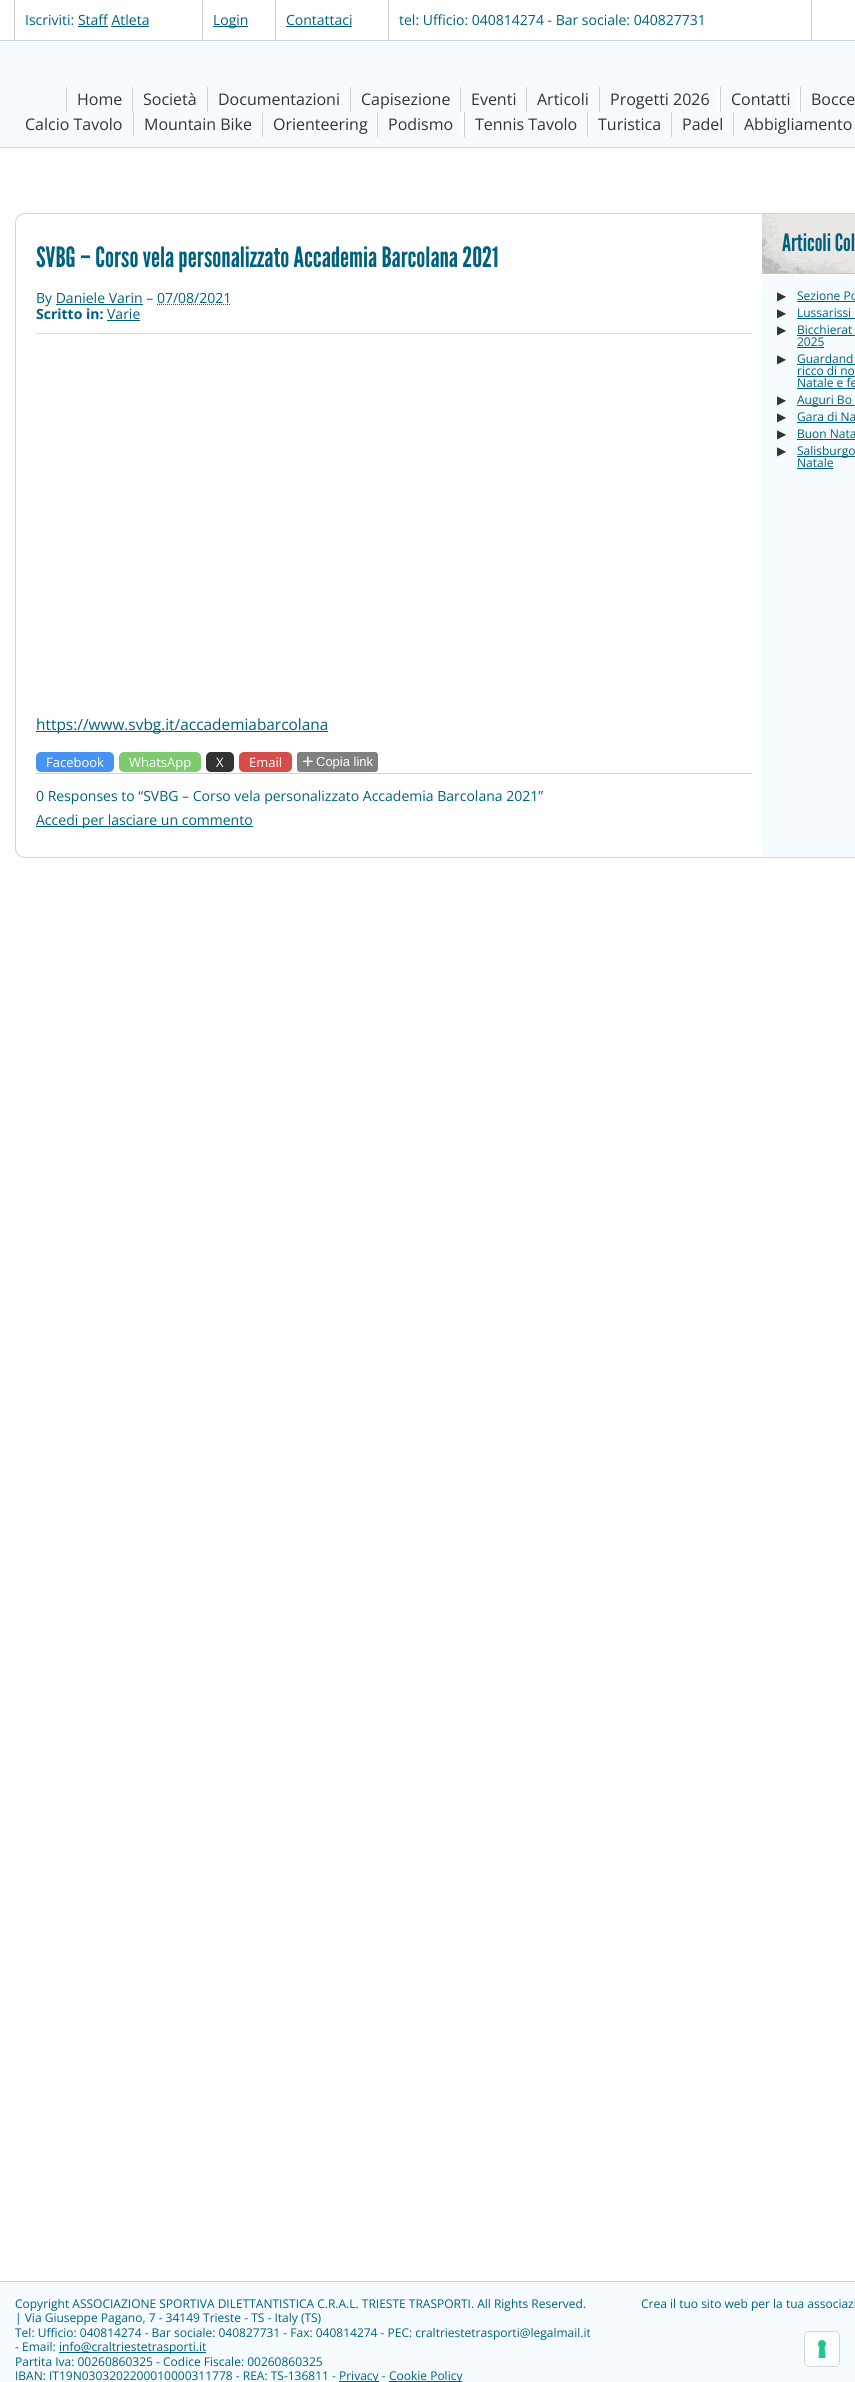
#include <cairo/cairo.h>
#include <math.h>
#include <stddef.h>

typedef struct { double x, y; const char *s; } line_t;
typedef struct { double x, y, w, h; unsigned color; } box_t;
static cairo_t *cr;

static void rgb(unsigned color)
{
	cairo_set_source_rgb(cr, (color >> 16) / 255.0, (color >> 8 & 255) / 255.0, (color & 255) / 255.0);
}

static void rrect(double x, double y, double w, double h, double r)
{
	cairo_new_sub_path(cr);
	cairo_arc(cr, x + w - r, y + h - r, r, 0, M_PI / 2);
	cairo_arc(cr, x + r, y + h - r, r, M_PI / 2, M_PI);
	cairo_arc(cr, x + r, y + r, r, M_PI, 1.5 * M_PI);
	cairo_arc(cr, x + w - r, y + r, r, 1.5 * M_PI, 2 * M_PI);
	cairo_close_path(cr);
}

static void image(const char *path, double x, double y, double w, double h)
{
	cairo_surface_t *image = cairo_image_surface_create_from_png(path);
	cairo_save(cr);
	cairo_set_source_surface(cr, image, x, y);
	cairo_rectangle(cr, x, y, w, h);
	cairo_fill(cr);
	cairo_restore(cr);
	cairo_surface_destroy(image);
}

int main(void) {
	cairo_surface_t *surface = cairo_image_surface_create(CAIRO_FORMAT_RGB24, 855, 2382);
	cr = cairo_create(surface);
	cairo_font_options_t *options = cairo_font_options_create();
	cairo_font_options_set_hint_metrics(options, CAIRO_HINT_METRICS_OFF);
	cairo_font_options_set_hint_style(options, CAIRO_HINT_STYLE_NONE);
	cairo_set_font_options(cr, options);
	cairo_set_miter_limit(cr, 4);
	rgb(0xffffff);
	cairo_paint(cr);
	{
		static const box_t items[] = {
			{202, 0, 1, 41, 0xcccccc},
			{14, 0, 1, 41, 0xcccccc},
			{78, 26, 30, 1, 0x00617f},
			{111, 26, 38, 1, 0x00617f},
			{275, 0, 1, 41, 0xcccccc},
			{213, 26, 35, 1, 0x00617f},
			{388, 0, 1, 41, 0xcccccc},
			{286, 26, 66, 1, 0x00617f},
			{811, 0, 1, 41, 0xcccccc},
			{0, 42, 855, 105, 0xf5fbfe},
			{0, 40, 855, 1, 0xd3d3d3},
			{0, 147, 855, 1, 0xd3d3d3},
			{131, 87, 1, 25, 0xffffff},
			{132, 87, 1, 25, 0xd3d3d3},
			{66, 87, 1, 25, 0xd0d0d0},
			{206, 87, 1, 25, 0xffffff},
			{207, 87, 1, 25, 0xd3d3d3},
			{349, 87, 1, 25, 0xffffff},
			{350, 87, 1, 25, 0xd3d3d3},
			{459, 87, 1, 25, 0xffffff},
			{460, 87, 1, 25, 0xd3d3d3},
			{525, 87, 1, 25, 0xffffff},
			{526, 87, 1, 25, 0xd3d3d3},
			{598, 87, 1, 25, 0xffffff},
			{599, 87, 1, 25, 0xd3d3d3},
			{719, 87, 1, 25, 0xffffff},
			{720, 87, 1, 25, 0xd3d3d3},
			{799, 87, 1, 25, 0xffffff},
			{800, 87, 1, 25, 0xd3d3d3},
			{132, 112, 1, 25, 0xffffff},
			{133, 112, 1, 25, 0xd3d3d3},
			{261, 112, 1, 25, 0xffffff},
			{262, 112, 1, 25, 0xd3d3d3},
			{376, 112, 1, 25, 0xffffff},
			{377, 112, 1, 25, 0xd3d3d3},
			{463, 112, 1, 25, 0xffffff},
			{464, 112, 1, 25, 0xd3d3d3},
			{586, 112, 1, 25, 0xffffff},
			{587, 112, 1, 25, 0xd3d3d3},
			{670, 112, 1, 25, 0xffffff},
			{671, 112, 1, 25, 0xd3d3d3},
			{732, 112, 1, 25, 0xffffff},
			{733, 112, 1, 25, 0xd3d3d3},
		};
		for (size_t i = 0; i < sizeof items / sizeof *items; i++) {
			rgb(items[i].color);
			cairo_rectangle(cr, items[i].x, items[i].y, items[i].w, items[i].h);
			cairo_fill(cr);
		}
	}
	rrect(15.5, 213.5, 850, 644, 9.5);
	cairo_set_line_width(cr, 1);
	cairo_stroke(cr);
	rgb(0xe0e0e0);
	cairo_rectangle(cr, 36, 333, 716, 1);
	cairo_fill(cr);
	rgb(0x00617f);
	cairo_rectangle(cr, 56, 304, 87, 1);
	cairo_fill(cr);
	cairo_new_path(cr);
	cairo_move_to(cr, 157, 304.5);
	cairo_line_to(cr, 231, 304.5);
	cairo_set_dash(cr, (double[]){1, 1}, 2, 0);
	cairo_stroke(cr);
	cairo_rectangle(cr, 107, 320, 33, 1);
	cairo_fill(cr);
	cairo_rectangle(cr, 36, 731, 292, 1);
	cairo_fill(cr);
	rgb(0x4692f5);
	rrect(36, 752, 78, 20, 5);
	cairo_fill(cr);
	rgb(0x7dcb6e);
	rrect(119, 752, 82, 20, 5);
	cairo_fill(cr);
	rgb(0x333333);
	rrect(206, 752, 28, 20, 5);
	cairo_fill(cr);
	rgb(0xd74b49);
	rrect(239, 752, 53, 20, 5);
	cairo_fill(cr);
	rgb(0x808080);
	rrect(297, 752, 81, 20, 3);
	cairo_fill(cr);
	{
		static const box_t items[] = {
			{36, 773, 716, 1, 0xd3d3d3},
			{36, 826, 217, 1, 0x00617f},
			{762, 275, 93, 582, 0xf5fbfe},
		};
		for (size_t i = 0; i < sizeof items / sizeof *items; i++) {
			rgb(items[i].color);
			cairo_rectangle(cr, items[i].x, items[i].y, items[i].w, items[i].h);
			cairo_fill(cr);
		}
	}
	image("img/1.png", 762, 214, 93, 59);
	{
		static const box_t items[] = {
			{762, 273, 93, 1, 0xc8c8c8},
			{797, 301, 58, 1, 0x00617f},
			{797, 318, 58, 1, 0x00617f},
			{797, 335, 58, 1, 0x00617f},
			{797, 347, 27, 1, 0x00617f},
			{797, 364, 58, 1, 0x00617f},
			{797, 376, 58, 1, 0x00617f},
			{797, 388, 58, 1, 0x00617f},
			{797, 405, 58, 1, 0x00617f},
			{797, 422, 58, 1, 0x00617f},
			{797, 439, 58, 1, 0x00617f},
			{797, 456, 58, 1, 0x00617f},
			{797, 468, 36, 1, 0x00617f},
			{0, 2283, 855, 99, 0xf5fbfe},
			{0, 2281, 855, 1, 0xd3d3d3},
			{59, 2352, 147, 1, 0x00617f},
			{339, 2381, 40, 1, 0x00617f},
			{389, 2381, 73, 1, 0x00617f},
		};
		for (size_t i = 0; i < sizeof items / sizeof *items; i++) {
			rgb(items[i].color);
			cairo_rectangle(cr, items[i].x, items[i].y, items[i].w, items[i].h);
			cairo_fill(cr);
		}
	}
	rrect(804.5, 2331.5, 35, 35, 4.5);
	rgb(0xd0d5d8);
	cairo_set_dash(cr, NULL, 0, 0);
	cairo_stroke(cr);
	rgb(0xffffff);
	rrect(805, 2332, 34, 34, 4);
	cairo_fill(cr);
	image("img/2.png", 818, 2340, 8, 18);
	cairo_select_font_face(cr, "Open Sans", CAIRO_FONT_SLANT_NORMAL, CAIRO_FONT_WEIGHT_NORMAL);
	cairo_set_font_size(cr, 14);
	rgb(0x00617f);
	{
		static const line_t items[] = {
			{25, 25, "Iscriviti: Staff Atleta"},
			{213, 25, "Login"},
			{286, 25, "Contattaci"},
			{399, 25, "tel: Ufficio: 040814274 - Bar sociale: 040827731"},
		};
		for (size_t i = 0; i < sizeof items / sizeof *items; i++) {
			cairo_move_to(cr, items[i].x, items[i].y);
			cairo_show_text(cr, items[i].s);
		}
	}
	cairo_set_font_size(cr, 16);
	rgb(0x333333);
	{
		static const line_t items[] = {
			{77, 105, "Home"},
			{143, 105, "Società"},
			{218, 105, "Documentazioni"},
			{361, 105, "Capisezione"},
			{471, 105, "Eventi"},
			{537, 105, "Articoli"},
			{610, 105, "Progetti 2026"},
			{731, 105, "Contatti"},
			{811, 105, "Bocce"},
			{25, 130, "Calcio Tavolo"},
			{144, 130, "Mountain Bike"},
			{273, 130, "Orienteering"},
			{388, 130, "Podismo"},
			{475, 130, "Tennis Tavolo"},
			{598, 130, "Turistica"},
			{682, 130, "Padel"},
			{744, 130, "Abbigliamento"},
		};
		for (size_t i = 0; i < sizeof items / sizeof *items; i++) {
			cairo_move_to(cr, items[i].x, items[i].y);
			cairo_show_text(cr, items[i].s);
		}
	}
	cairo_select_font_face(cr, "League Gothic", CAIRO_FONT_SLANT_NORMAL, CAIRO_FONT_WEIGHT_NORMAL);
	cairo_set_font_size(cr, 28);
	rgb(0x00617f);
	cairo_move_to(cr, 36, 267);
	cairo_show_text(cr, "SVBG – Corso vela personalizzato Accademia Barcolana 2021");
	cairo_select_font_face(cr, "Open Sans", CAIRO_FONT_SLANT_NORMAL, CAIRO_FONT_WEIGHT_NORMAL);
	cairo_set_font_size(cr, 14);
	cairo_move_to(cr, 36, 303);
	cairo_show_text(cr, "By Daniele Varin – 07/08/2021");
	cairo_select_font_face(cr, "Open Sans", CAIRO_FONT_SLANT_NORMAL, CAIRO_FONT_WEIGHT_BOLD);
	cairo_move_to(cr, 36, 319);
	cairo_show_text(cr, "Scritto in:");
	cairo_select_font_face(cr, "Open Sans", CAIRO_FONT_SLANT_NORMAL, CAIRO_FONT_WEIGHT_NORMAL);
	cairo_move_to(cr, 107, 319);
	cairo_show_text(cr, "Varie");
	cairo_set_font_size(cr, 15.4);
	cairo_move_to(cr, 36, 730);
	cairo_show_text(cr, "https://www.svbg.it/accademiabarcolana");
	cairo_set_font_size(cr, 13);
	rgb(0xffffff);
	{
		static const line_t items[] = {
			{46, 767, "Facebook"},
			{129, 767, "WhatsApp"},
			{216, 767, "X"},
			{249, 767, "Email"},
		};
		for (size_t i = 0; i < sizeof items / sizeof *items; i++) {
			cairo_move_to(cr, items[i].x, items[i].y);
			cairo_show_text(cr, items[i].s);
		}
	}
	cairo_select_font_face(cr, "Liberation Sans", CAIRO_FONT_SLANT_NORMAL, CAIRO_FONT_WEIGHT_NORMAL);
	cairo_set_font_size(cr, 20);
	cairo_move_to(cr, 302, 768);
	cairo_show_text(cr, "+");
	cairo_set_font_size(cr, 13);
	cairo_move_to(cr, 316, 766);
	cairo_show_text(cr, "Copia link");
	cairo_select_font_face(cr, "Open Sans", CAIRO_FONT_SLANT_NORMAL, CAIRO_FONT_WEIGHT_NORMAL);
	cairo_set_font_size(cr, 14);
	rgb(0x00617f);
	cairo_move_to(cr, 36, 801);
	cairo_show_text(cr, "0 Responses to “SVBG – Corso vela personalizzato Accademia Barcolana 2021”");
	cairo_move_to(cr, 36, 825);
	cairo_show_text(cr, "Accedi per lasciare un commento");
	cairo_select_font_face(cr, "League Gothic", CAIRO_FONT_SLANT_NORMAL, CAIRO_FONT_WEIGHT_NORMAL);
	cairo_set_font_size(cr, 24);
	cairo_move_to(cr, 782, 251);
	cairo_show_text(cr, "Articoli Col");
	cairo_select_font_face(cr, "DejaVu Sans", CAIRO_FONT_SLANT_NORMAL, CAIRO_FONT_WEIGHT_NORMAL);
	cairo_set_font_size(cr, 12);
	rgb(0x333333);
	cairo_move_to(cr, 777, 300);
	cairo_show_text(cr, "▶");
	cairo_select_font_face(cr, "Open Sans", CAIRO_FONT_SLANT_NORMAL, CAIRO_FONT_WEIGHT_NORMAL);
	rgb(0x00617f);
	cairo_move_to(cr, 797, 300);
	cairo_show_text(cr, "Sezione Po");
	cairo_select_font_face(cr, "DejaVu Sans", CAIRO_FONT_SLANT_NORMAL, CAIRO_FONT_WEIGHT_NORMAL);
	rgb(0x333333);
	cairo_move_to(cr, 777, 317);
	cairo_show_text(cr, "▶");
	cairo_select_font_face(cr, "Open Sans", CAIRO_FONT_SLANT_NORMAL, CAIRO_FONT_WEIGHT_NORMAL);
	rgb(0x00617f);
	cairo_move_to(cr, 797, 317);
	cairo_show_text(cr, "Lussarissi");
	cairo_select_font_face(cr, "DejaVu Sans", CAIRO_FONT_SLANT_NORMAL, CAIRO_FONT_WEIGHT_NORMAL);
	rgb(0x333333);
	cairo_move_to(cr, 777, 334);
	cairo_show_text(cr, "▶");
	cairo_select_font_face(cr, "Open Sans", CAIRO_FONT_SLANT_NORMAL, CAIRO_FONT_WEIGHT_NORMAL);
	rgb(0x00617f);
	cairo_move_to(cr, 797, 334);
	cairo_show_text(cr, "Bicchierat");
	cairo_move_to(cr, 797, 346);
	cairo_show_text(cr, "2025");
	cairo_select_font_face(cr, "DejaVu Sans", CAIRO_FONT_SLANT_NORMAL, CAIRO_FONT_WEIGHT_NORMAL);
	rgb(0x333333);
	cairo_move_to(cr, 777, 363);
	cairo_show_text(cr, "▶");
	cairo_select_font_face(cr, "Open Sans", CAIRO_FONT_SLANT_NORMAL, CAIRO_FONT_WEIGHT_NORMAL);
	rgb(0x00617f);
	{
		static const line_t items[] = {
			{797, 363, "Guardand"},
			{797, 375, "ricco di no"},
			{797, 387, "Natale e fe"},
		};
		for (size_t i = 0; i < sizeof items / sizeof *items; i++) {
			cairo_move_to(cr, items[i].x, items[i].y);
			cairo_show_text(cr, items[i].s);
		}
	}
	cairo_select_font_face(cr, "DejaVu Sans", CAIRO_FONT_SLANT_NORMAL, CAIRO_FONT_WEIGHT_NORMAL);
	rgb(0x333333);
	cairo_move_to(cr, 777, 404);
	cairo_show_text(cr, "▶");
	cairo_select_font_face(cr, "Open Sans", CAIRO_FONT_SLANT_NORMAL, CAIRO_FONT_WEIGHT_NORMAL);
	rgb(0x00617f);
	cairo_move_to(cr, 797, 404);
	cairo_show_text(cr, "Auguri Bo");
	cairo_select_font_face(cr, "DejaVu Sans", CAIRO_FONT_SLANT_NORMAL, CAIRO_FONT_WEIGHT_NORMAL);
	rgb(0x333333);
	cairo_move_to(cr, 777, 421);
	cairo_show_text(cr, "▶");
	cairo_select_font_face(cr, "Open Sans", CAIRO_FONT_SLANT_NORMAL, CAIRO_FONT_WEIGHT_NORMAL);
	rgb(0x00617f);
	cairo_move_to(cr, 797, 421);
	cairo_show_text(cr, "Gara di Na");
	cairo_select_font_face(cr, "DejaVu Sans", CAIRO_FONT_SLANT_NORMAL, CAIRO_FONT_WEIGHT_NORMAL);
	rgb(0x333333);
	cairo_move_to(cr, 777, 438);
	cairo_show_text(cr, "▶");
	cairo_select_font_face(cr, "Open Sans", CAIRO_FONT_SLANT_NORMAL, CAIRO_FONT_WEIGHT_NORMAL);
	rgb(0x00617f);
	cairo_move_to(cr, 797, 438);
	cairo_show_text(cr, "Buon Nata");
	cairo_select_font_face(cr, "DejaVu Sans", CAIRO_FONT_SLANT_NORMAL, CAIRO_FONT_WEIGHT_NORMAL);
	rgb(0x333333);
	cairo_move_to(cr, 777, 455);
	cairo_show_text(cr, "▶");
	cairo_select_font_face(cr, "Open Sans", CAIRO_FONT_SLANT_NORMAL, CAIRO_FONT_WEIGHT_NORMAL);
	rgb(0x00617f);
	{
		static const line_t items[] = {
			{797, 455, "Salisburgo"},
			{797, 467, "Natale"},
			{15, 2308, "Copyright ASSOCIAZIONE SPORTIVA DILETTANTISTICA C.R.A.L. TRIESTE TRASPORTI. All Rights Reserved."},
			{15, 2322, "| Via Giuseppe Pagano, 7 - 34149 Trieste - TS - Italy (TS)"},
			{15, 2337, "Tel: Ufficio: 040814274 - Bar sociale: 040827731 - Fax: 040814274 - PEC: craltriestetrasporti@legalmail.it"},
			{15, 2351, "- Email:"},
			{59, 2351, "info@craltriestetrasporti.it"},
			{15, 2366, "Partita Iva: 00260860325 - Codice Fiscale: 00260860325"},
			{15, 2380, "IBAN: IT19N0303202200010000311778 - REA: TS-136811 -"},
			{339, 2380, "Privacy -"},
			{389, 2380, "Cookie Policy"},
			{641, 2308, "Crea il tuo sito web per la tua associazi"},
		};
		for (size_t i = 0; i < sizeof items / sizeof *items; i++) {
			cairo_move_to(cr, items[i].x, items[i].y);
			cairo_show_text(cr, items[i].s);
		}
	}
	cairo_surface_write_to_png(surface, "page.png");
	cairo_font_options_destroy(options);
	cairo_destroy(cr);
	cairo_surface_destroy(surface);
	return 0;
}
